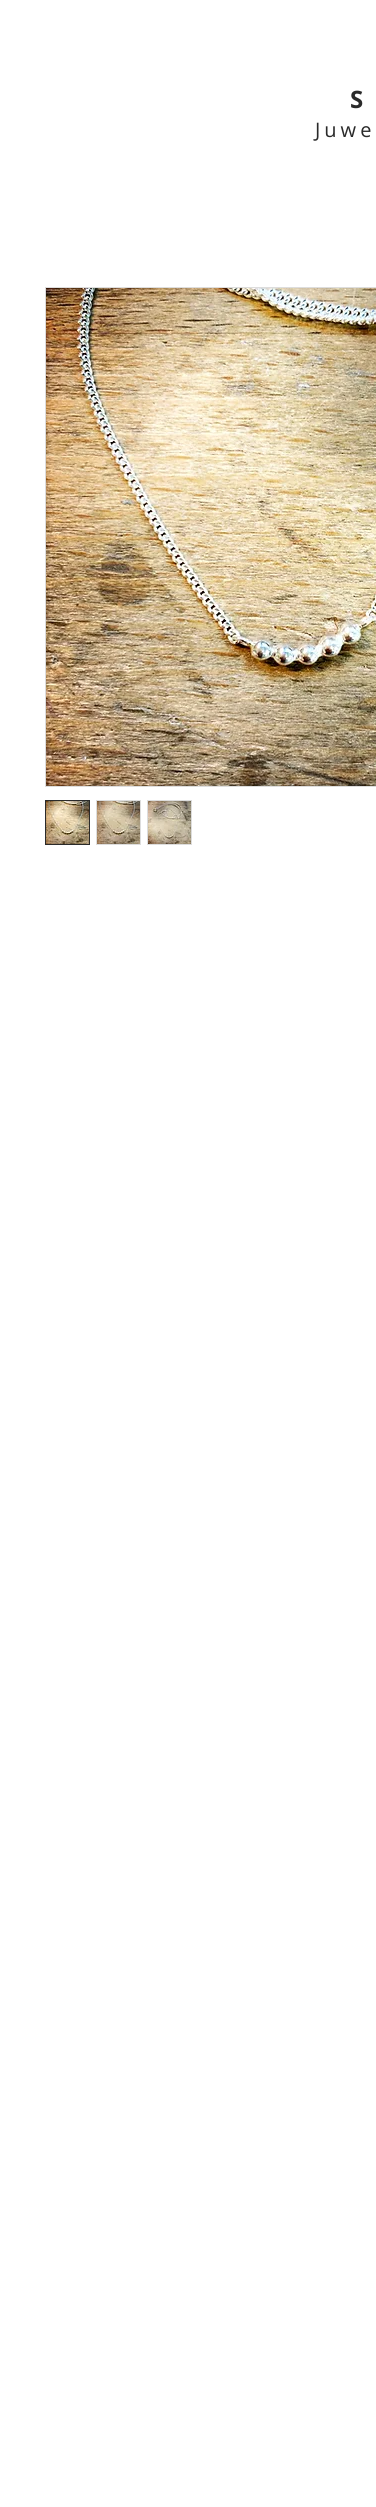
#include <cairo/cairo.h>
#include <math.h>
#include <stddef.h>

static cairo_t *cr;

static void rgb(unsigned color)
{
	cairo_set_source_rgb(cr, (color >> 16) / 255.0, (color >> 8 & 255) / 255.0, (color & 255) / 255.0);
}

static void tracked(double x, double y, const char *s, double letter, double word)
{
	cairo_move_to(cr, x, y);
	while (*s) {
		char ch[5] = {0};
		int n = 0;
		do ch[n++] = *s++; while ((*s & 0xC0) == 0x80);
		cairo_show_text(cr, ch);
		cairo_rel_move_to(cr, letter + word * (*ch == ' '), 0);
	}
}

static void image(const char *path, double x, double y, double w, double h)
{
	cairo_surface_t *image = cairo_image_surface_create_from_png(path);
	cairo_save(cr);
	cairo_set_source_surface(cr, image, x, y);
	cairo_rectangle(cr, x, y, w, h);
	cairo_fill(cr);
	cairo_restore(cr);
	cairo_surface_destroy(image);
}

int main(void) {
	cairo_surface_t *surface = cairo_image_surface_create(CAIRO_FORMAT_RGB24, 376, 2507);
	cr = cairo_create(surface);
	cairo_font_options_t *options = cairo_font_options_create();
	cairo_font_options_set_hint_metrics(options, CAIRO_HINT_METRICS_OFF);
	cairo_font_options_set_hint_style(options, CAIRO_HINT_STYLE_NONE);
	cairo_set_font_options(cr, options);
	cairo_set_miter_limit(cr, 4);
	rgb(0xffffff);
	cairo_paint(cr);
	cairo_rectangle(cr, 45.5, 287.5, 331, 499);
	rgb(0xdddddd);
	cairo_set_line_width(cr, 1);
	cairo_stroke(cr);
	image("img/1.png", 46, 288, 330, 498);
	cairo_rectangle(cr, 45.5, 800.5, 44, 44);
	rgb(0x2a2a2a);
	cairo_stroke(cr);
	image("img/2.png", 46, 801, 43, 43);
	rgb(0xdddddd);
	cairo_rectangle(cr, 96, 800, 45, 45);
	cairo_fill(cr);
	image("img/3.png", 97, 801, 43, 43);
	cairo_rectangle(cr, 147, 800, 45, 45);
	cairo_fill(cr);
	image("img/4.png", 148, 801, 43, 43);
	cairo_select_font_face(cr, "Open Sans", CAIRO_FONT_SLANT_NORMAL, CAIRO_FONT_WEIGHT_BOLD);
	cairo_set_font_size(cr, 24);
	rgb(0x2a2a2a);
	tracked(350, 108, "S", 5, 0);
	cairo_select_font_face(cr, "Open Sans", CAIRO_FONT_SLANT_NORMAL, CAIRO_FONT_WEIGHT_NORMAL);
	cairo_set_font_size(cr, 20);
	tracked(315, 137, "Juwe", 4, 0);
	cairo_surface_write_to_png(surface, "page.png");
	cairo_font_options_destroy(options);
	cairo_destroy(cr);
	cairo_surface_destroy(surface);
	return 0;
}
